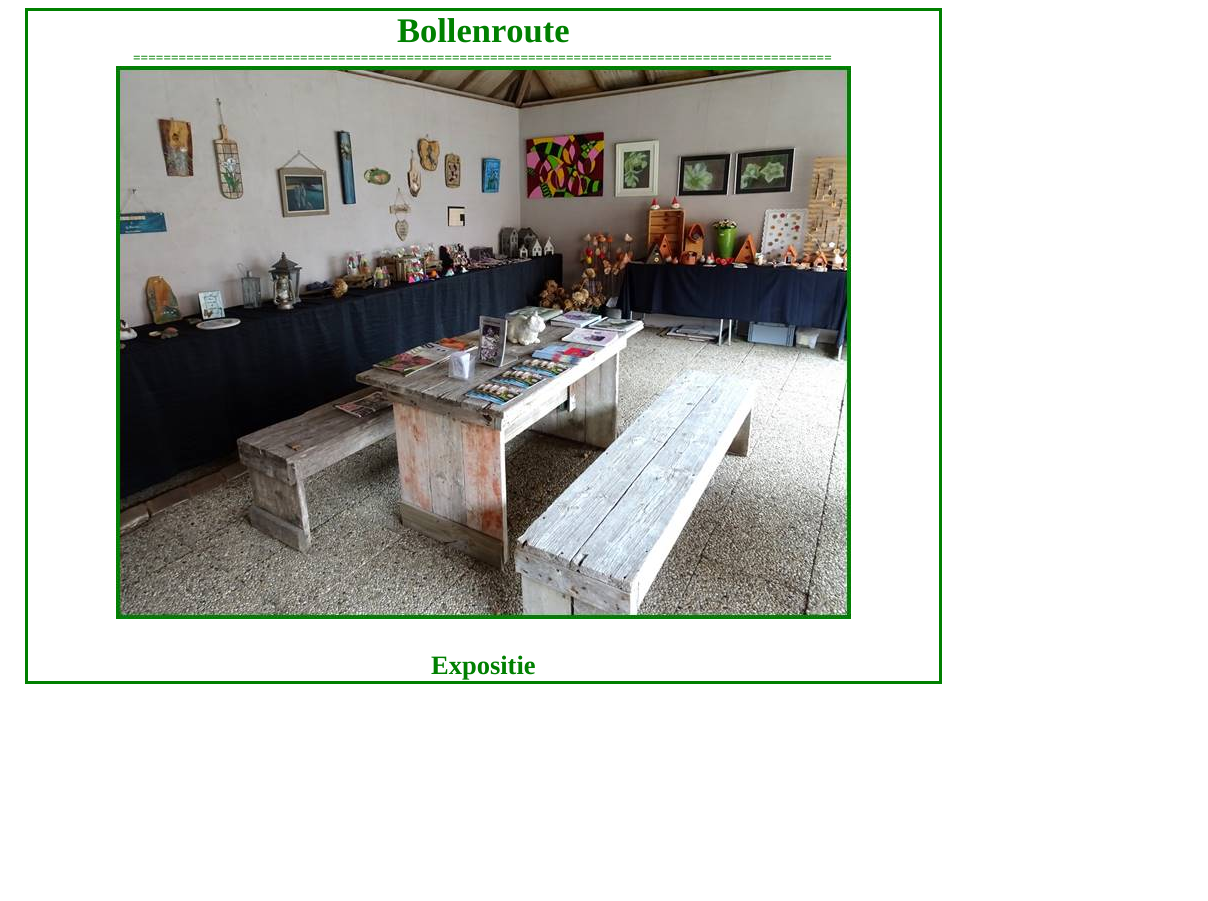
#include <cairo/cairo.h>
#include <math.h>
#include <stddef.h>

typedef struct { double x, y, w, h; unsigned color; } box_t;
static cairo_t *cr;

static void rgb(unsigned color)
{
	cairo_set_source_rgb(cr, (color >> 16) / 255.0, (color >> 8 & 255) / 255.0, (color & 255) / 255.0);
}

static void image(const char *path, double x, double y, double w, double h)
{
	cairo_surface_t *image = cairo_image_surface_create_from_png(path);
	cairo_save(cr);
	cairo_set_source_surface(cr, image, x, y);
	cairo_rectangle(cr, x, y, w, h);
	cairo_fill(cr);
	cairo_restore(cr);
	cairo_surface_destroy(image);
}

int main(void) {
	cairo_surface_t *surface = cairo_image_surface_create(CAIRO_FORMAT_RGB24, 1208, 901);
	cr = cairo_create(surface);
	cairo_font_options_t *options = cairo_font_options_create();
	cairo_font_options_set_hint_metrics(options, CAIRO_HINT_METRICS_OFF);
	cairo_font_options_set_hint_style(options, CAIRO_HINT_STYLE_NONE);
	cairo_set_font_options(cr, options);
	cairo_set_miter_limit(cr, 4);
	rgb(0xffffff);
	cairo_paint(cr);
	{
		static const box_t items[] = {
			{25, 8, 917, 3, 0x008000},
			{939, 8, 3, 676, 0x008000},
			{25, 681, 917, 3, 0x008000},
			{25, 8, 3, 676, 0x008000},
		};
		for (size_t i = 0; i < sizeof items / sizeof *items; i++) {
			rgb(items[i].color);
			cairo_rectangle(cr, items[i].x, items[i].y, items[i].w, items[i].h);
			cairo_fill(cr);
		}
	}
	image("img/1.png", 116, 66, 735, 553);
	cairo_select_font_face(cr, "Liberation Serif", CAIRO_FONT_SLANT_NORMAL, CAIRO_FONT_WEIGHT_BOLD);
	cairo_set_font_size(cr, 34.5);
	cairo_move_to(cr, 397, 42);
	cairo_show_text(cr, "Bollenroute");
	cairo_set_font_size(cr, 13.33);
	cairo_move_to(cr, 133, 62);
	cairo_show_text(cr, "============================================================================================");
	cairo_set_font_size(cr, 26.5);
	cairo_move_to(cr, 431, 674);
	cairo_show_text(cr, "Expositie");
	cairo_surface_write_to_png(surface, "page.png");
	cairo_font_options_destroy(options);
	cairo_destroy(cr);
	cairo_surface_destroy(surface);
	return 0;
}
